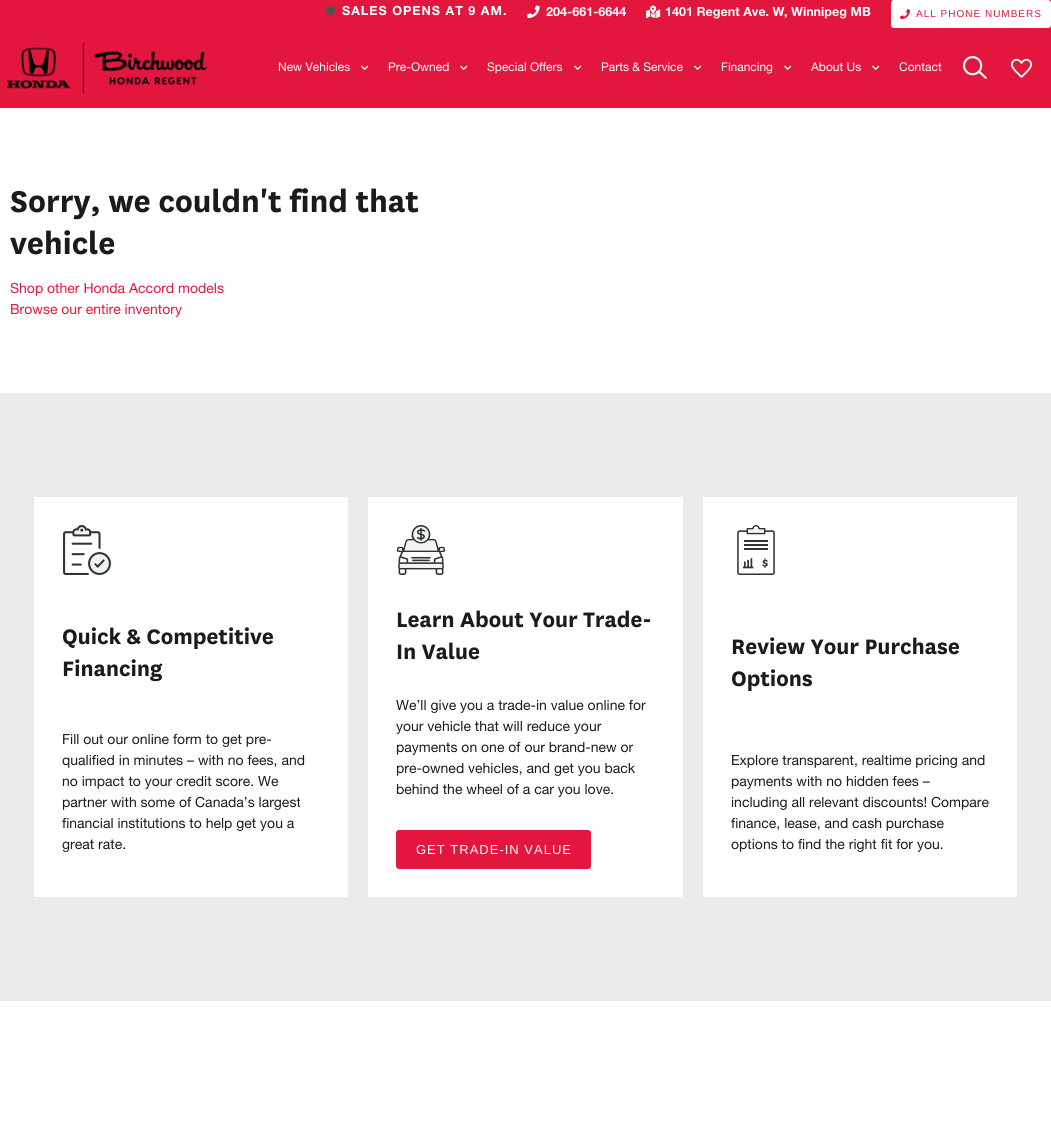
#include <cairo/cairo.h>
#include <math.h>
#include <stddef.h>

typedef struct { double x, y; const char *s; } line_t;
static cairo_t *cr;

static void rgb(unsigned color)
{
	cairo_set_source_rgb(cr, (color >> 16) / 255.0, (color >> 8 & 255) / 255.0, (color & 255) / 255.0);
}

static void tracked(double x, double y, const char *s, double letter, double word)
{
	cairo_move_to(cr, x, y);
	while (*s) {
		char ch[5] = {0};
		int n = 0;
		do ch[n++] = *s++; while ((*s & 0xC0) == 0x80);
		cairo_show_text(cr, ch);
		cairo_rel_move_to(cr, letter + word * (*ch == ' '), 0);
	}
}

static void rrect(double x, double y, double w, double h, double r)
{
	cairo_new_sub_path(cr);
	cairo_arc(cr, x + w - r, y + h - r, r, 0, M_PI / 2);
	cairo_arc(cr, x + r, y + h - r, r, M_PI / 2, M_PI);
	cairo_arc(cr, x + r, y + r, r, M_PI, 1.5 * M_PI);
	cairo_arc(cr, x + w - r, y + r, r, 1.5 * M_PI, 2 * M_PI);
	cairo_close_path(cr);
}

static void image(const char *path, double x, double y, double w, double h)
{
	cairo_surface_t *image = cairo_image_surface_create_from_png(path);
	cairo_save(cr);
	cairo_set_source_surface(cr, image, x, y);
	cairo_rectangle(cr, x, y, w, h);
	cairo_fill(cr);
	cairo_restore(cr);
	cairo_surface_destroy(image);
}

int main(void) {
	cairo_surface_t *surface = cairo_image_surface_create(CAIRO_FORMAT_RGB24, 1051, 1125);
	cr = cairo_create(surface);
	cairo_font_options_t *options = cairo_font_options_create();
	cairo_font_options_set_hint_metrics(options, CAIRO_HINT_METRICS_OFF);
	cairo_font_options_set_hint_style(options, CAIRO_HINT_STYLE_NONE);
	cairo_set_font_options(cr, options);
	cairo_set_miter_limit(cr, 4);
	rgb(0xffffff);
	cairo_paint(cr);
	rgb(0xe3173e);
	cairo_rectangle(cr, 0, 0, 1051, 108);
	cairo_fill(cr);
	rgb(0x525252);
	cairo_arc(cr, 330.5, 10.5, 4.5, 0, 2 * M_PI);
	cairo_fill(cr);
	image("img/1.png", 527, 5, 13, 14);
	image("img/2.png", 646, 5, 15, 14);
	rgb(0xffffff);
	rrect(891.5, 0.5, 159, 27, 2.5);
	cairo_fill_preserve(cr);
	cairo_set_line_width(cr, 1);
	cairo_stroke(cr);
	image("img/3.png", 900, 9, 10, 11);
	image("img/4.png", 7, 43, 200, 50);
	image("img/5.png", 361, 65, 8, 5);
	image("img/5.png", 460, 65, 8, 5);
	image("img/5.png", 574, 65, 8, 5);
	image("img/5.png", 694, 65, 8, 5);
	image("img/5.png", 784, 65, 8, 5);
	image("img/5.png", 872, 65, 8, 5);
	image("img/6.png", 963, 56, 24, 23);
	image("img/7.png", 1011, 58, 21, 21);
	image("img/8.png", 10, 188, 409, 32);
	image("img/9.png", 10, 230, 105, 25);
	rgb(0xebebeb);
	cairo_rectangle(cr, 0, 393, 1051, 608);
	cairo_fill(cr);
	rgb(0xffffff);
	cairo_rectangle(cr, 34, 497, 314, 400);
	cairo_fill(cr);
	image("img/10.png", 63, 525, 48, 50);
	image("img/11.png", 63, 627, 210, 22);
	image("img/12.png", 63, 659, 100, 23);
	cairo_rectangle(cr, 368, 497, 315, 400);
	cairo_fill(cr);
	image("img/13.png", 396, 525, 50, 50);
	image("img/14.png", 397, 610, 253, 18);
	image("img/15.png", 397, 642, 83, 18);
	rgb(0xe3173e);
	rrect(396, 830, 195, 39, 3);
	cairo_fill(cr);
	rgb(0xffffff);
	cairo_rectangle(cr, 703, 497, 314, 400);
	cairo_fill(cr);
	image("img/16.png", 737, 525, 38, 50);
	image("img/17.png", 732, 637, 227, 18);
	image("img/18.png", 732, 669, 80, 22);
	cairo_select_font_face(cr, "Helvetica Neue", CAIRO_FONT_SLANT_NORMAL, CAIRO_FONT_WEIGHT_BOLD);
	cairo_set_font_size(cr, 12.6);
	tracked(342, 15, "SALES OPENS AT 9 AM.", 1, 0);
	{
		static const line_t items[] = {
			{546, 16, "204-661-6644"},
			{665, 16, "1401 Regent Ave. W"},
			{784, 16, ", Winnipeg MB"},
		};
		for (size_t i = 0; i < sizeof items / sizeof *items; i++) {
			cairo_move_to(cr, items[i].x, items[i].y);
			cairo_show_text(cr, items[i].s);
		}
	}
	cairo_select_font_face(cr, "Liberation Sans", CAIRO_FONT_SLANT_NORMAL, CAIRO_FONT_WEIGHT_NORMAL);
	cairo_set_font_size(cr, 10);
	rgb(0xe3173e);
	tracked(916, 17, "ALL PHONE NUMBERS", 1, 0);
	cairo_select_font_face(cr, "Helvetica Neue", CAIRO_FONT_SLANT_NORMAL, CAIRO_FONT_WEIGHT_NORMAL);
	cairo_set_font_size(cr, 12);
	rgb(0xffffff);
	{
		static const line_t items[] = {
			{278, 71, "New Vehicles"},
			{388, 71, "Pre-Owned"},
			{487, 71, "Special Offers"},
			{601, 71, "Parts & Service"},
			{721, 71, "Financing"},
			{811, 71, "About Us"},
			{899, 71, "Contact"},
		};
		for (size_t i = 0; i < sizeof items / sizeof *items; i++) {
			cairo_move_to(cr, items[i].x, items[i].y);
			cairo_show_text(cr, items[i].s);
		}
	}
	cairo_set_font_size(cr, 14);
	rgb(0xe3173e);
	cairo_move_to(cr, 10, 293);
	cairo_show_text(cr, "Shop other Honda Accord models");
	cairo_move_to(cr, 10, 314);
	cairo_show_text(cr, "Browse our entire inventory");
	rgb(0x1b1b1b);
	{
		static const line_t items[] = {
			{62, 744, "Fill out our online form to get pre-"},
			{62, 765, "qualified in minutes – with no fees, and"},
			{62, 786, "no impact to your credit score. We"},
			{62, 807, "partner with some of Canada’s largest"},
			{62, 828, "financial institutions to help get you a"},
			{62, 849, "great rate."},
			{396, 710, "We’ll give you a trade-in value online for"},
			{396, 731, "your vehicle that will reduce your"},
			{396, 752, "payments on one of our brand-new or"},
			{396, 773, "pre-owned vehicles, and get you back"},
			{396, 794, "behind the wheel of a car you love."},
		};
		for (size_t i = 0; i < sizeof items / sizeof *items; i++) {
			cairo_move_to(cr, items[i].x, items[i].y);
			cairo_show_text(cr, items[i].s);
		}
	}
	cairo_select_font_face(cr, "Liberation Sans", CAIRO_FONT_SLANT_NORMAL, CAIRO_FONT_WEIGHT_NORMAL);
	cairo_set_font_size(cr, 13);
	rgb(0xffffff);
	tracked(416, 854, "GET TRADE-IN VALUE", 1, 0);
	cairo_select_font_face(cr, "Helvetica Neue", CAIRO_FONT_SLANT_NORMAL, CAIRO_FONT_WEIGHT_NORMAL);
	cairo_set_font_size(cr, 14);
	rgb(0x1b1b1b);
	{
		static const line_t items[] = {
			{731, 765, "Explore transparent, realtime pricing and"},
			{731, 786, "payments with no hidden fees –"},
			{731, 807, "including all relevant discounts! Compare"},
			{731, 828, "finance, lease, and cash purchase"},
			{731, 849, "options to find the right fit for you."},
		};
		for (size_t i = 0; i < sizeof items / sizeof *items; i++) {
			cairo_move_to(cr, items[i].x, items[i].y);
			cairo_show_text(cr, items[i].s);
		}
	}
	cairo_surface_write_to_png(surface, "page.png");
	cairo_font_options_destroy(options);
	cairo_destroy(cr);
	cairo_surface_destroy(surface);
	return 0;
}
